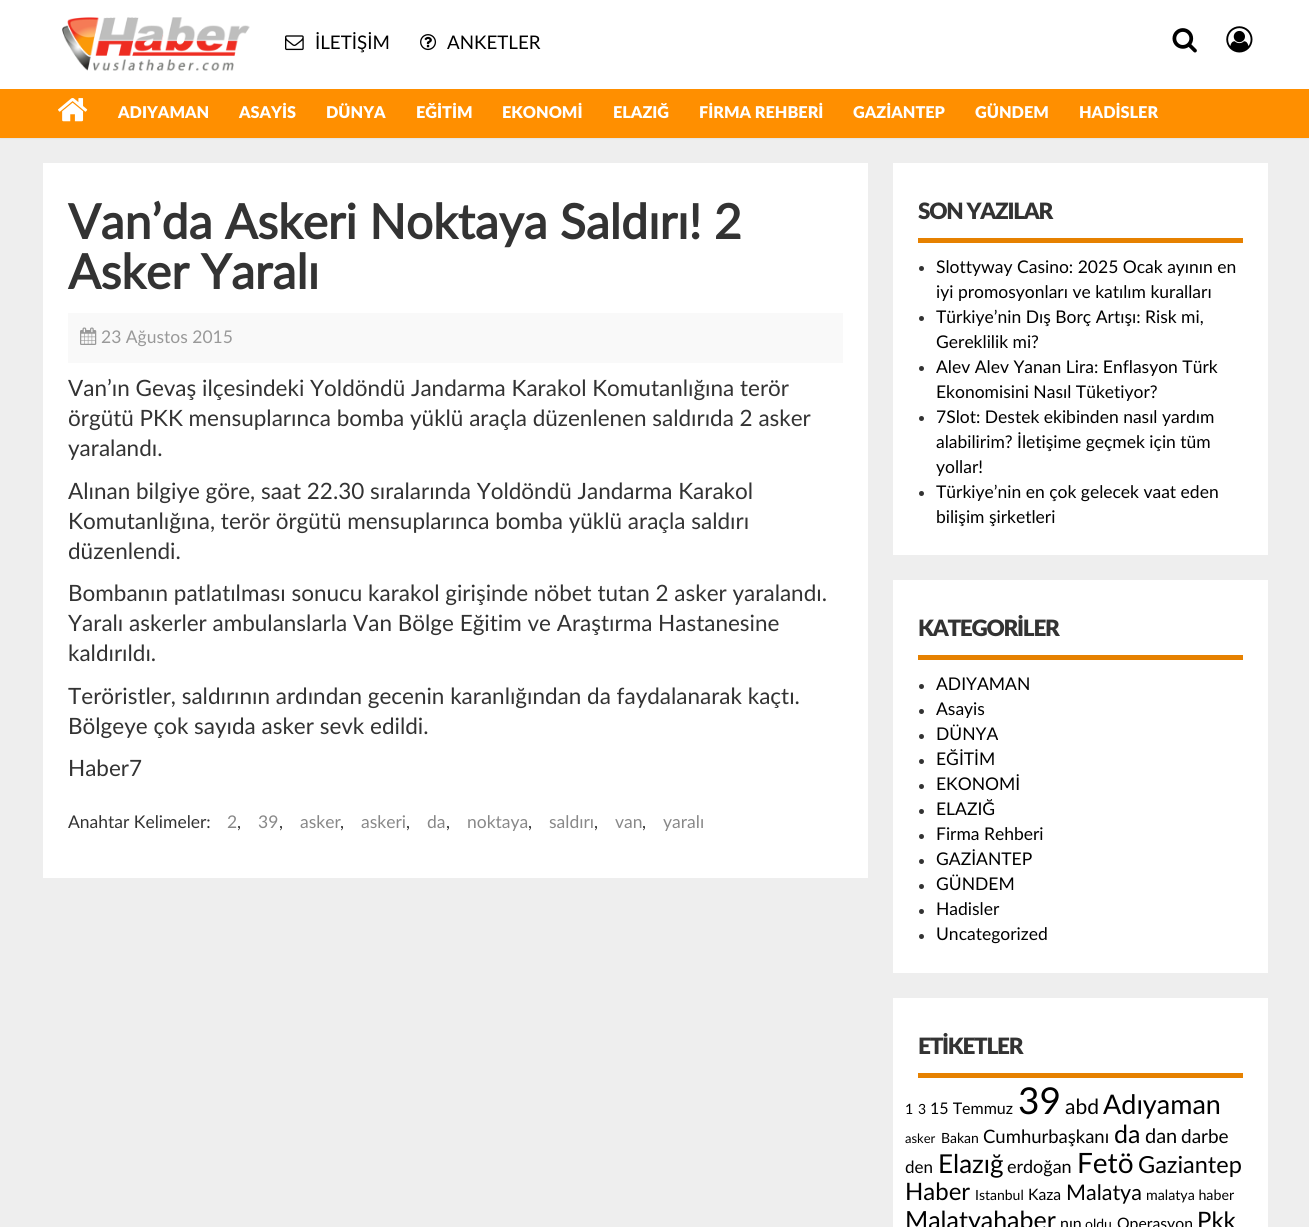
#include <cairo/cairo.h>
#include <math.h>
#include <stddef.h>

typedef struct { double x, y; const char *s; } line_t;
static cairo_t *cr;

static void rgb(unsigned color)
{
	cairo_set_source_rgb(cr, (color >> 16) / 255.0, (color >> 8 & 255) / 255.0, (color & 255) / 255.0);
}

static void tracked(double x, double y, const char *s, double letter, double word)
{
	cairo_move_to(cr, x, y);
	while (*s) {
		char ch[5] = {0};
		int n = 0;
		do ch[n++] = *s++; while ((*s & 0xC0) == 0x80);
		cairo_show_text(cr, ch);
		cairo_rel_move_to(cr, letter + word * (*ch == ' '), 0);
	}
}

static void rrect(double x, double y, double w, double h, double r)
{
	cairo_new_sub_path(cr);
	cairo_arc(cr, x + w - r, y + h - r, r, 0, M_PI / 2);
	cairo_arc(cr, x + r, y + h - r, r, M_PI / 2, M_PI);
	cairo_arc(cr, x + r, y + r, r, M_PI, 1.5 * M_PI);
	cairo_arc(cr, x + w - r, y + r, r, 1.5 * M_PI, 2 * M_PI);
	cairo_close_path(cr);
}

static void soft_shadow(double x, double y, double w, double h, double r, double blur, double alpha)
{
	cairo_push_group_with_content(cr, CAIRO_CONTENT_ALPHA);
	cairo_set_operator(cr, CAIRO_OPERATOR_SOURCE);
	for (int i = 15; i >= -15 && fmin(w, h) + blur * i / 3 > 0; i -= 2) {
		double e = blur * i / 6;
		cairo_set_source_rgba(cr, 0, 0, 0, alpha * erfc((i - 1) / 8.5) / 2);
		rrect(x - e, y - e, w + 2 * e, h + 2 * e, fmax(0, fmin(r + e + blur * .6, fmin(w, h) / 2 + e)));
		cairo_fill(cr);
	}
	cairo_pattern_t *soft = cairo_pop_group(cr);
	cairo_mask(cr, soft);
	cairo_pattern_destroy(soft);
}

static void image(const char *path, double x, double y, double w, double h)
{
	cairo_surface_t *image = cairo_image_surface_create_from_png(path);
	cairo_save(cr);
	cairo_set_source_surface(cr, image, x, y);
	cairo_rectangle(cr, x, y, w, h);
	cairo_fill(cr);
	cairo_restore(cr);
	cairo_surface_destroy(image);
}

int main(void) {
	cairo_surface_t *surface = cairo_image_surface_create(CAIRO_FORMAT_RGB24, 1309, 1227);
	cr = cairo_create(surface);
	cairo_font_options_t *options = cairo_font_options_create();
	cairo_font_options_set_hint_metrics(options, CAIRO_HINT_METRICS_OFF);
	cairo_font_options_set_hint_style(options, CAIRO_HINT_STYLE_NONE);
	cairo_set_font_options(cr, options);
	cairo_set_miter_limit(cr, 4);
	rgb(0xeeeeee);
	cairo_paint(cr);
	rgb(0x141414);
	soft_shadow(0, 1, 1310, 138, 0, 0.5, 0.05);
	rgb(0xff8f00);
	cairo_rectangle(cr, 0, 89, 1309, 49);
	cairo_fill(cr);
	rgb(0xffffff);
	cairo_rectangle(cr, 0, 0, 1309, 89);
	cairo_fill(cr);
	image("img/1.png", 62, 17, 188, 54);
	image("img/2.png", 285, 35, 19, 16);
	image("img/3.png", 420, 34, 17, 17);
	image("img/4.png", 1172, 28, 25, 25);
	image("img/5.png", 1226, 26, 27, 27);
	image("img/6.png", 58, 98, 30, 24);
	cairo_rectangle(cr, 43, 163, 825, 715);
	cairo_fill(cr);
	rgb(0xf9f9f9);
	cairo_rectangle(cr, 68, 313, 775, 50);
	cairo_fill(cr);
	image("img/7.png", 80, 327, 17, 18);
	rgb(0xffffff);
	cairo_rectangle(cr, 893, 163, 375, 392);
	cairo_fill(cr);
	rgb(0xe68100);
	cairo_rectangle(cr, 918, 238, 325, 5);
	cairo_fill(cr);
	rgb(0x333333);
	cairo_arc(cr, 921.5, 268.5, 2.5, 0, 2 * M_PI);
	cairo_fill(cr);
	cairo_arc(cr, 921.5, 318.5, 2.5, 0, 2 * M_PI);
	cairo_fill(cr);
	cairo_arc(cr, 921.5, 368.5, 2.5, 0, 2 * M_PI);
	cairo_fill(cr);
	cairo_arc(cr, 921.5, 418.5, 2.5, 0, 2 * M_PI);
	cairo_fill(cr);
	cairo_arc(cr, 921.5, 493.5, 2.5, 0, 2 * M_PI);
	cairo_fill(cr);
	rgb(0xffffff);
	cairo_rectangle(cr, 893, 580, 375, 393);
	cairo_fill(cr);
	rgb(0xe68100);
	cairo_rectangle(cr, 918, 655, 325, 5);
	cairo_fill(cr);
	rgb(0x333333);
	cairo_arc(cr, 921.5, 686.5, 2.5, 0, 2 * M_PI);
	cairo_fill(cr);
	cairo_arc(cr, 921.5, 711.5, 2.5, 0, 2 * M_PI);
	cairo_fill(cr);
	cairo_arc(cr, 921.5, 736.5, 2.5, 0, 2 * M_PI);
	cairo_fill(cr);
	cairo_arc(cr, 921.5, 761.5, 2.5, 0, 2 * M_PI);
	cairo_fill(cr);
	cairo_arc(cr, 921.5, 786.5, 2.5, 0, 2 * M_PI);
	cairo_fill(cr);
	cairo_arc(cr, 921.5, 811.5, 2.5, 0, 2 * M_PI);
	cairo_fill(cr);
	cairo_arc(cr, 921.5, 836.5, 2.5, 0, 2 * M_PI);
	cairo_fill(cr);
	cairo_arc(cr, 921.5, 861.5, 2.5, 0, 2 * M_PI);
	cairo_fill(cr);
	cairo_arc(cr, 921.5, 886.5, 2.5, 0, 2 * M_PI);
	cairo_fill(cr);
	cairo_arc(cr, 921.5, 911.5, 2.5, 0, 2 * M_PI);
	cairo_fill(cr);
	cairo_arc(cr, 921.5, 936.5, 2.5, 0, 2 * M_PI);
	cairo_fill(cr);
	rgb(0xffffff);
	cairo_rectangle(cr, 893, 998, 375, 229);
	cairo_fill(cr);
	rgb(0xe68100);
	cairo_rectangle(cr, 918, 1073, 325, 5);
	cairo_fill(cr);
	cairo_select_font_face(cr, "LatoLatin", CAIRO_FONT_SLANT_NORMAL, CAIRO_FONT_WEIGHT_NORMAL);
	cairo_set_font_size(cr, 18.75);
	rgb(0x000000);
	cairo_move_to(cr, 315, 49);
	cairo_show_text(cr, "İLETİŞİM");
	cairo_move_to(cr, 447, 49);
	cairo_show_text(cr, "ANKETLER");
	cairo_select_font_face(cr, "LatoLatin Black", CAIRO_FONT_SLANT_NORMAL, CAIRO_FONT_WEIGHT_NORMAL);
	cairo_set_font_size(cr, 16.25);
	rgb(0xffffff);
	{
		static const line_t items[] = {
			{118, 118, "ADIYAMAN"},
			{239, 118, "ASAYİS"},
			{326, 118, "DÜNYA"},
			{416, 118, "EĞİTİM"},
			{502, 118, "EKONOMİ"},
			{613, 118, "ELAZIĞ"},
			{699, 118, "FİRMA REHBERİ"},
			{853, 118, "GAZİANTEP"},
			{975, 118, "GÜNDEM"},
			{1079, 118, "HADİSLER"},
		};
		for (size_t i = 0; i < sizeof items / sizeof *items; i++) {
			cairo_move_to(cr, items[i].x, items[i].y);
			cairo_show_text(cr, items[i].s);
		}
	}
	cairo_select_font_face(cr, "LatoLatin", CAIRO_FONT_SLANT_NORMAL, CAIRO_FONT_WEIGHT_BOLD);
	cairo_set_font_size(cr, 48.1);
	rgb(0x333333);
	cairo_move_to(cr, 68, 239);
	cairo_show_text(cr, "Van’da Askeri Noktaya Saldırı! 2");
	cairo_move_to(cr, 68, 289);
	cairo_show_text(cr, "Asker Yaralı");
	cairo_select_font_face(cr, "LatoLatin", CAIRO_FONT_SLANT_NORMAL, CAIRO_FONT_WEIGHT_NORMAL);
	cairo_set_font_size(cr, 17.5);
	rgb(0x999999);
	cairo_move_to(cr, 101, 343);
	cairo_show_text(cr, "23 Ağustos 2015");
	cairo_set_font_size(cr, 22.5);
	rgb(0x333333);
	{
		static const line_t items[] = {
			{68, 396, "Van’ın Gevaş ilçesindeki Yoldöndü Jandarma Karakol Komutanlığına terör"},
			{68, 426, "örgütü PKK mensuplarınca bomba yüklü araçla düzenlenen saldırıda 2 asker"},
			{68, 456, "yaralandı."},
			{68, 499, "Alınan bilgiye göre, saat 22.30 sıralarında Yoldöndü Jandarma Karakol"},
			{68, 529, "Komutanlığına, terör örgütü mensuplarınca bomba yüklü araçla saldırı"},
			{68, 559, "düzenlendi."},
			{68, 601, "Bombanın patlatılması sonucu karakol girişinde nöbet tutan 2 asker yaralandı."},
			{68, 631, "Yaralı askerler ambulanslarla Van Bölge Eğitim ve Araştırma Hastanesine"},
			{68, 661, "kaldırıldı."},
			{68, 704, "Teröristler, saldırının ardından gecenin karanlığından da faydalanarak kaçtı."},
			{68, 734, "Bölgeye çok sayıda asker sevk edildi."},
			{68, 776, "Haber7"},
		};
		for (size_t i = 0; i < sizeof items / sizeof *items; i++) {
			cairo_move_to(cr, items[i].x, items[i].y);
			cairo_show_text(cr, items[i].s);
		}
	}
	cairo_set_font_size(cr, 17.5);
	cairo_move_to(cr, 68, 828);
	cairo_show_text(cr, "Anahtar Kelimeler:");
	rgb(0x888888);
	cairo_move_to(cr, 227, 828);
	cairo_show_text(cr, "2");
	rgb(0x333333);
	cairo_move_to(cr, 237, 828);
	cairo_show_text(cr, ",");
	rgb(0x888888);
	cairo_move_to(cr, 258, 828);
	cairo_show_text(cr, "39");
	rgb(0x333333);
	cairo_move_to(cr, 279, 828);
	cairo_show_text(cr, ",");
	rgb(0x888888);
	cairo_move_to(cr, 300, 828);
	cairo_show_text(cr, "asker");
	rgb(0x333333);
	cairo_move_to(cr, 340, 828);
	cairo_show_text(cr, ",");
	rgb(0x888888);
	cairo_move_to(cr, 361, 828);
	cairo_show_text(cr, "askeri");
	rgb(0x333333);
	cairo_move_to(cr, 406, 828);
	cairo_show_text(cr, ",");
	rgb(0x888888);
	cairo_move_to(cr, 427, 828);
	cairo_show_text(cr, "da");
	rgb(0x333333);
	cairo_move_to(cr, 446, 828);
	cairo_show_text(cr, ",");
	rgb(0x888888);
	cairo_move_to(cr, 467, 828);
	cairo_show_text(cr, "noktaya");
	rgb(0x333333);
	cairo_move_to(cr, 528, 828);
	cairo_show_text(cr, ",");
	rgb(0x888888);
	cairo_move_to(cr, 549, 828);
	cairo_show_text(cr, "saldırı");
	rgb(0x333333);
	cairo_move_to(cr, 594, 828);
	cairo_show_text(cr, ",");
	rgb(0x888888);
	cairo_move_to(cr, 615, 828);
	cairo_show_text(cr, "van");
	rgb(0x333333);
	cairo_move_to(cr, 642, 828);
	cairo_show_text(cr, ",");
	rgb(0x888888);
	cairo_move_to(cr, 663, 828);
	cairo_show_text(cr, "yaralı");
	cairo_select_font_face(cr, "LatoLatin Black", CAIRO_FONT_SLANT_NORMAL, CAIRO_FONT_WEIGHT_NORMAL);
	cairo_set_font_size(cr, 22.5);
	rgb(0x333333);
	tracked(918, 219, "SON YAZILAR", -1.25, 0);
	cairo_select_font_face(cr, "LatoLatin", CAIRO_FONT_SLANT_NORMAL, CAIRO_FONT_WEIGHT_NORMAL);
	cairo_set_font_size(cr, 17.5);
	rgb(0x000000);
	{
		static const line_t items[] = {
			{936, 273, "Slottyway Casino: 2025 Ocak ayının en"},
			{936, 298, "iyi promosyonları ve katılım kuralları"},
			{936, 323, "Türkiye’nin Dış Borç Artışı: Risk mi,"},
			{936, 348, "Gereklilik mi?"},
			{936, 373, "Alev Alev Yanan Lira: Enflasyon Türk"},
			{936, 398, "Ekonomisini Nasıl Tüketiyor?"},
			{936, 423, "7Slot: Destek ekibinden nasıl yardım"},
			{936, 448, "alabilirim? İletişime geçmek için tüm"},
			{936, 473, "yollar!"},
			{936, 498, "Türkiye’nin en çok gelecek vaat eden"},
			{936, 523, "bilişim şirketleri"},
		};
		for (size_t i = 0; i < sizeof items / sizeof *items; i++) {
			cairo_move_to(cr, items[i].x, items[i].y);
			cairo_show_text(cr, items[i].s);
		}
	}
	cairo_select_font_face(cr, "LatoLatin Black", CAIRO_FONT_SLANT_NORMAL, CAIRO_FONT_WEIGHT_NORMAL);
	cairo_set_font_size(cr, 22.5);
	rgb(0x333333);
	tracked(918, 636, "KATEGORİLER", -1.25, 0);
	cairo_select_font_face(cr, "LatoLatin", CAIRO_FONT_SLANT_NORMAL, CAIRO_FONT_WEIGHT_NORMAL);
	cairo_set_font_size(cr, 17.5);
	rgb(0x000000);
	{
		static const line_t items[] = {
			{936, 690, "ADIYAMAN"},
			{936, 715, "Asayis"},
			{936, 740, "DÜNYA"},
			{936, 765, "EĞİTİM"},
			{936, 790, "EKONOMİ"},
			{936, 815, "ELAZIĞ"},
			{936, 840, "Firma Rehberi"},
			{936, 865, "GAZİANTEP"},
			{936, 890, "GÜNDEM"},
			{936, 915, "Hadisler"},
			{936, 940, "Uncategorized"},
		};
		for (size_t i = 0; i < sizeof items / sizeof *items; i++) {
			cairo_move_to(cr, items[i].x, items[i].y);
			cairo_show_text(cr, items[i].s);
		}
	}
	cairo_select_font_face(cr, "LatoLatin Black", CAIRO_FONT_SLANT_NORMAL, CAIRO_FONT_WEIGHT_NORMAL);
	cairo_set_font_size(cr, 22.5);
	rgb(0x333333);
	tracked(918, 1054, "ETİKETLER", -1.25, 0);
	cairo_select_font_face(cr, "LatoLatin", CAIRO_FONT_SLANT_NORMAL, CAIRO_FONT_WEIGHT_NORMAL);
	cairo_set_font_size(cr, 14.25);
	rgb(0x000000);
	cairo_move_to(cr, 905, 1114);
	cairo_show_text(cr, "1");
	cairo_set_font_size(cr, 14);
	cairo_move_to(cr, 918, 1114);
	cairo_show_text(cr, "3");
	cairo_set_font_size(cr, 16);
	cairo_move_to(cr, 930, 1114);
	cairo_show_text(cr, "15 Temmuz");
	cairo_set_font_size(cr, 37);
	cairo_move_to(cr, 1018, 1114);
	cairo_show_text(cr, "39");
	cairo_set_font_size(cr, 21);
	cairo_move_to(cr, 1065, 1114);
	cairo_show_text(cr, "abd");
	cairo_set_font_size(cr, 27);
	cairo_move_to(cr, 1103, 1114);
	cairo_show_text(cr, "Adıyaman");
	cairo_set_font_size(cr, 13);
	cairo_move_to(cr, 905, 1143);
	cairo_show_text(cr, "asker");
	cairo_set_font_size(cr, 14);
	cairo_move_to(cr, 941, 1143);
	cairo_show_text(cr, "Bakan");
	cairo_set_font_size(cr, 18.5);
	cairo_move_to(cr, 983, 1143);
	cairo_show_text(cr, "Cumhurbaşkanı");
	cairo_set_font_size(cr, 25);
	cairo_move_to(cr, 1114, 1143);
	cairo_show_text(cr, "da");
	cairo_set_font_size(cr, 20);
	cairo_move_to(cr, 1145, 1143);
	cairo_show_text(cr, "dan");
	cairo_set_font_size(cr, 19);
	cairo_move_to(cr, 1181, 1143);
	cairo_show_text(cr, "darbe");
	cairo_set_font_size(cr, 17);
	cairo_move_to(cr, 905, 1173);
	cairo_show_text(cr, "den");
	cairo_set_font_size(cr, 26);
	cairo_move_to(cr, 938, 1173);
	cairo_show_text(cr, "Elazığ");
	cairo_set_font_size(cr, 18);
	cairo_move_to(cr, 1007, 1173);
	cairo_show_text(cr, "erdoğan");
	cairo_set_font_size(cr, 28);
	cairo_move_to(cr, 1077, 1173);
	cairo_show_text(cr, "Fetö");
	cairo_set_font_size(cr, 23.5);
	cairo_move_to(cr, 1138, 1173);
	cairo_show_text(cr, "Gaziantep");
	cairo_set_font_size(cr, 24);
	cairo_move_to(cr, 905, 1200);
	cairo_show_text(cr, "Haber");
	cairo_set_font_size(cr, 14);
	cairo_move_to(cr, 975, 1200);
	cairo_show_text(cr, "Istanbul");
	cairo_set_font_size(cr, 15.75);
	cairo_move_to(cr, 1028, 1200);
	cairo_show_text(cr, "Kaza");
	cairo_set_font_size(cr, 21.5);
	cairo_move_to(cr, 1066, 1200);
	cairo_show_text(cr, "Malatya");
	cairo_set_font_size(cr, 14.25);
	cairo_move_to(cr, 1146, 1200);
	cairo_show_text(cr, "malatya haber");
	cairo_set_font_size(cr, 25);
	cairo_move_to(cr, 905, 1229);
	cairo_show_text(cr, "Malatyahaber");
	cairo_set_font_size(cr, 16);
	cairo_move_to(cr, 1060, 1229);
	cairo_show_text(cr, "nın");
	cairo_set_font_size(cr, 14);
	cairo_move_to(cr, 1085, 1229);
	cairo_show_text(cr, "oldu");
	cairo_set_font_size(cr, 15.75);
	cairo_move_to(cr, 1117, 1229);
	cairo_show_text(cr, "Operasyon");
	cairo_set_font_size(cr, 24);
	cairo_move_to(cr, 1197, 1229);
	cairo_show_text(cr, "Pkk");
	cairo_surface_write_to_png(surface, "page.png");
	cairo_font_options_destroy(options);
	cairo_destroy(cr);
	cairo_surface_destroy(surface);
	return 0;
}
